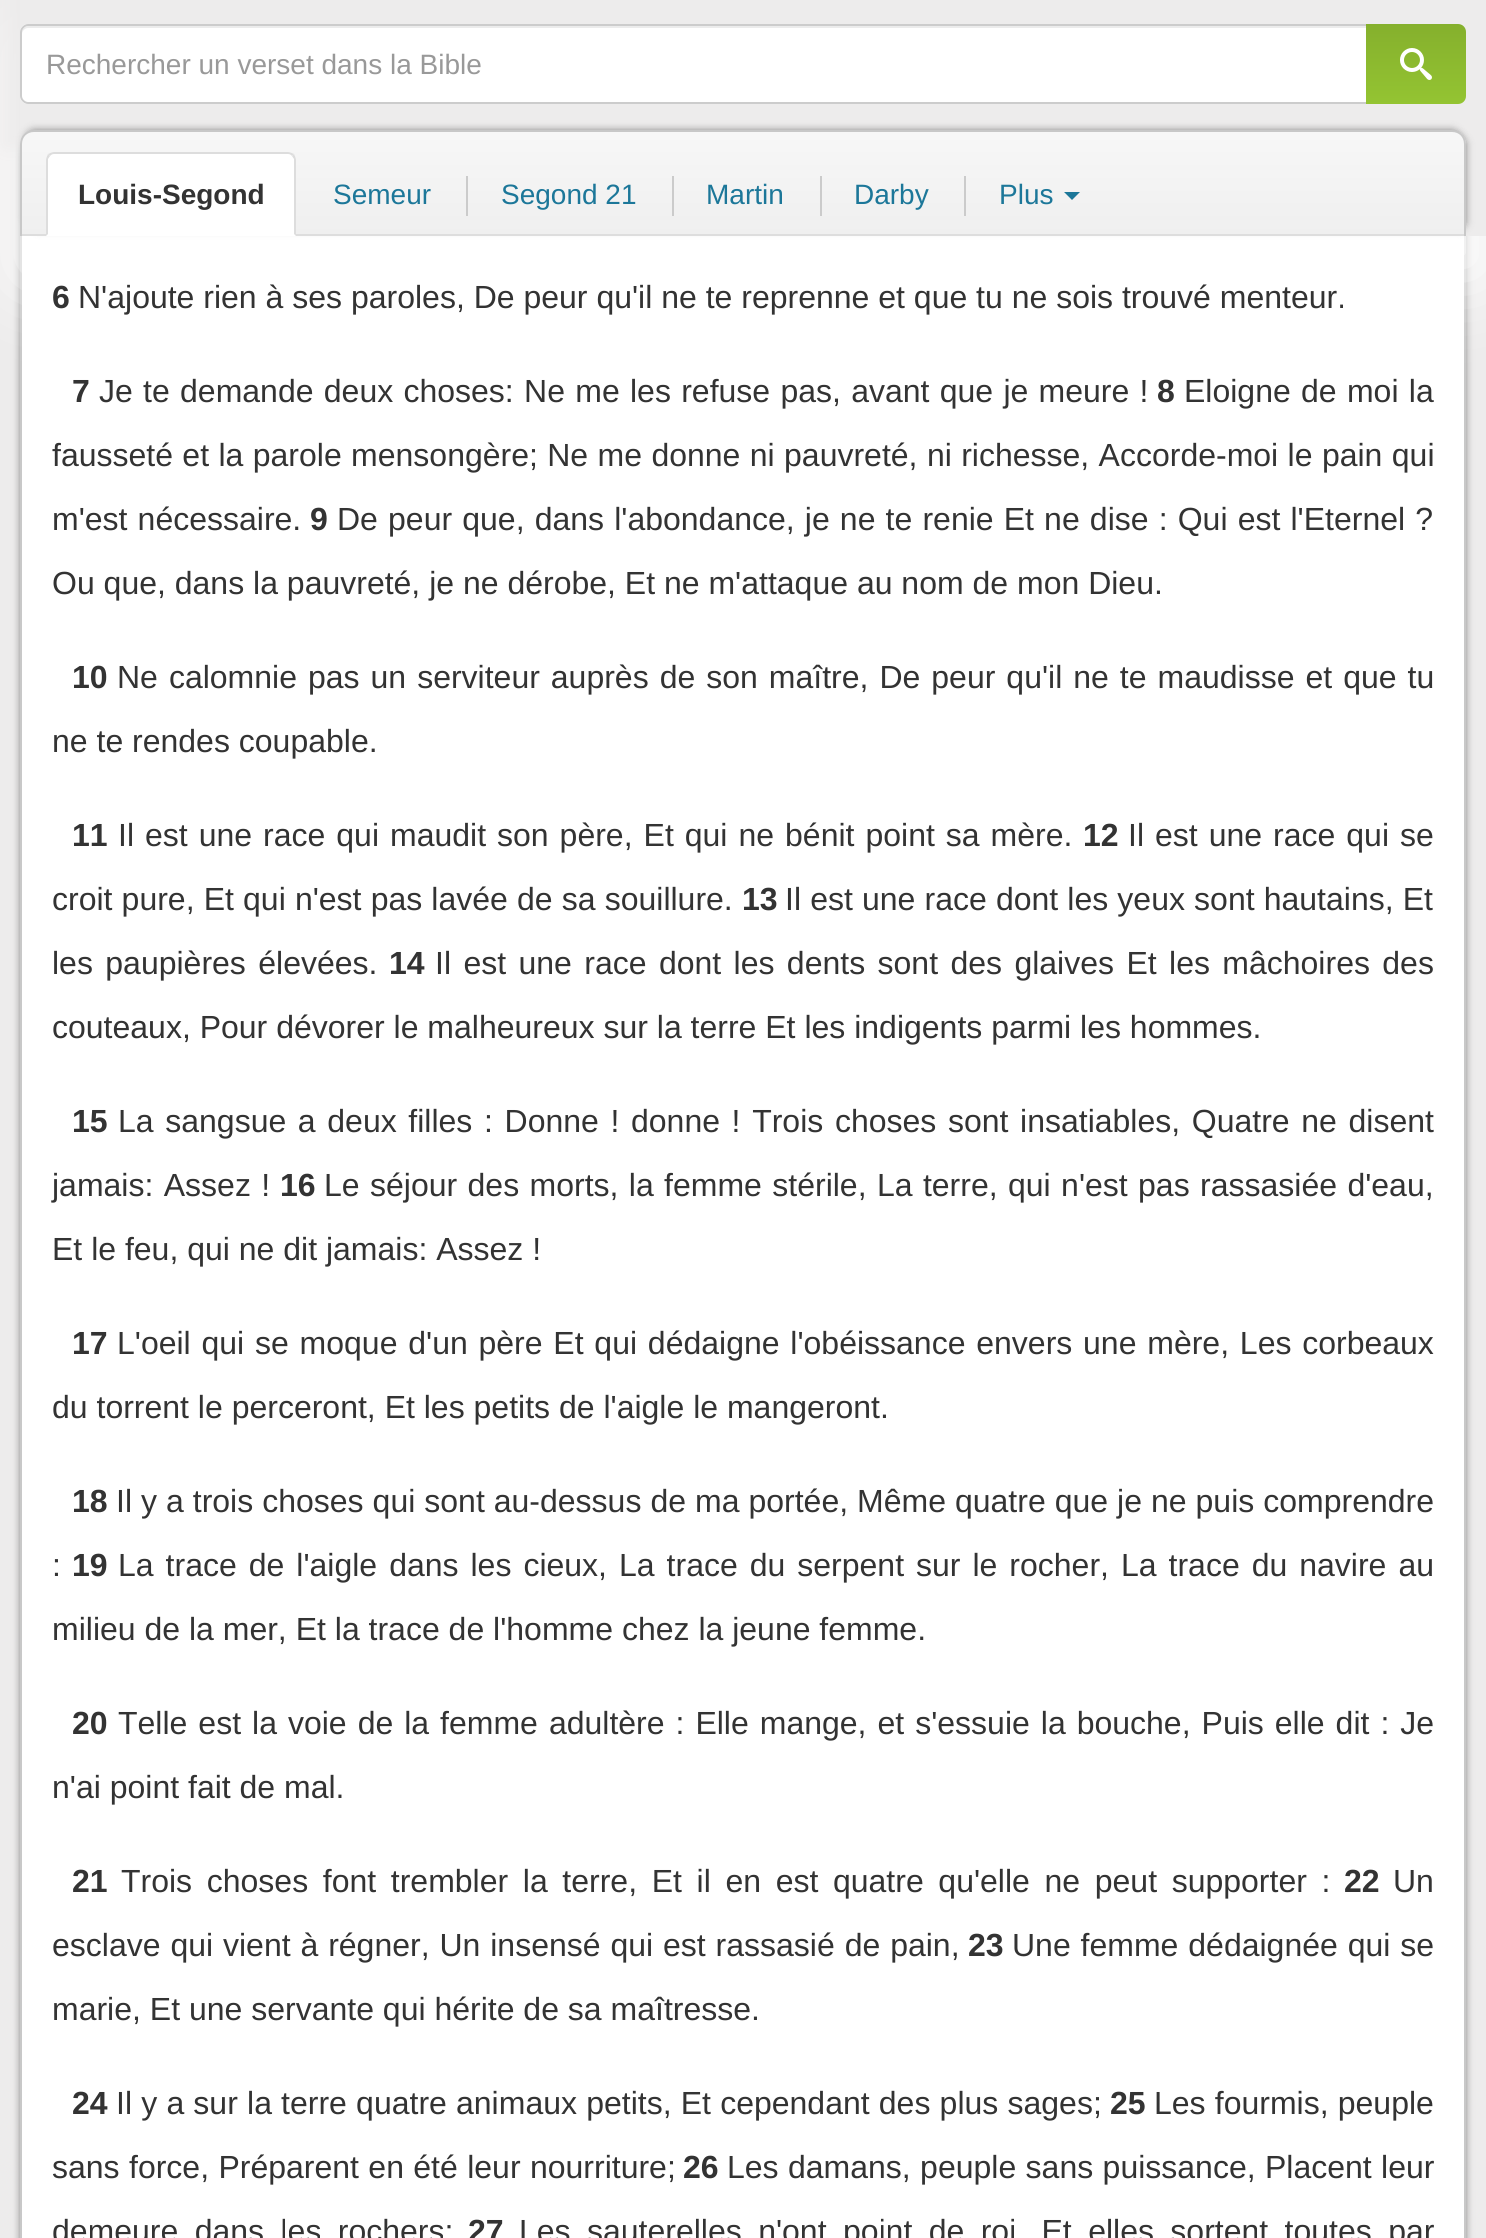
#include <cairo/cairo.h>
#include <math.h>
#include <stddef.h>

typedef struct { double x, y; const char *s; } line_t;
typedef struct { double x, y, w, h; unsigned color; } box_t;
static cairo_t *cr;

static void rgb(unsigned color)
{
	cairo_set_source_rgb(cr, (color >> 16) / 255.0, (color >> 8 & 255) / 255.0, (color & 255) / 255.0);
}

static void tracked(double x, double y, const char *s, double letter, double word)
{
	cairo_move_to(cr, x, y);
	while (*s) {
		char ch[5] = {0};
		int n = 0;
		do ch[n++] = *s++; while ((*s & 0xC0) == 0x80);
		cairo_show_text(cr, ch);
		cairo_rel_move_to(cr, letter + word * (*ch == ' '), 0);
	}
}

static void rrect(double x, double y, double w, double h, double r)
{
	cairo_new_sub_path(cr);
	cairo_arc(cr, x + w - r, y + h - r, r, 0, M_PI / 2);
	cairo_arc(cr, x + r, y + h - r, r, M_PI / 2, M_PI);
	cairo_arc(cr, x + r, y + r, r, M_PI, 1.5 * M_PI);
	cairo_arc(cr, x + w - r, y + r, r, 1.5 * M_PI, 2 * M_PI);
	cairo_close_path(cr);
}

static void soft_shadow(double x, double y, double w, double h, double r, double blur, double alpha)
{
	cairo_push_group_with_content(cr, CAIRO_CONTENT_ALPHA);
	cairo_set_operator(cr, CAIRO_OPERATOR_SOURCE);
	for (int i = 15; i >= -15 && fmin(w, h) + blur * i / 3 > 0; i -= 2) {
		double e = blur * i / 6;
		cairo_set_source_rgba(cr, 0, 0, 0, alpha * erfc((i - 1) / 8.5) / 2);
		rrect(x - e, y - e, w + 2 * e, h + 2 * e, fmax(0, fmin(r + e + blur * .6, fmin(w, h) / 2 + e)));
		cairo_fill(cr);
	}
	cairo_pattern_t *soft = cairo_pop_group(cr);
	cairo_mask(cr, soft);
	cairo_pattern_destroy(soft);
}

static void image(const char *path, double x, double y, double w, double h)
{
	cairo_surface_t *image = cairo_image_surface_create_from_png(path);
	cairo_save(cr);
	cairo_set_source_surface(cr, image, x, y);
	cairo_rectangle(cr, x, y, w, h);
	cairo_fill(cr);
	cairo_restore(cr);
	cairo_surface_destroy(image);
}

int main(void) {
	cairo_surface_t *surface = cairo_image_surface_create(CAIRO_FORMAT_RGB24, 1486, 2238);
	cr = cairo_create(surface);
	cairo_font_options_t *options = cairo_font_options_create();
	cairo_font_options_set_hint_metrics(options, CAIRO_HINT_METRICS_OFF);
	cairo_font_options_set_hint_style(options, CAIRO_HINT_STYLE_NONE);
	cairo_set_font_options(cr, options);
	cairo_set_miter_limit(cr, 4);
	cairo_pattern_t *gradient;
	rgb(0xedecec);
	cairo_paint(cr);
	rgb(0x000000);
	soft_shadow(32, -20, 1434, 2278, 8, 4, 0.4);
	soft_shadow(20, -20, 1434, 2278, 8, 4, 0.4);
	soft_shadow(26, -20, 1434, 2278, 8, 4, 0.4);
	rgb(0xffffff);
	cairo_rectangle(cr, 22, 236, 1442, 2002);
	cairo_fill(cr);
	rgb(0xc8c8c8);
	cairo_set_fill_rule(cr, CAIRO_FILL_RULE_EVEN_ODD);
	cairo_new_path(cr);
	cairo_move_to(cr, 20, -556);
	cairo_line_to(cr, 1466, -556);
	cairo_line_to(cr, 1466, 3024);
	cairo_curve_to(cr, 1466, 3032, 1460, 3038, 1452, 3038);
	cairo_line_to(cr, 34, 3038);
	cairo_curve_to(cr, 26, 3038, 20, 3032, 20, 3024);
	cairo_close_path(cr);
	cairo_move_to(cr, 22, -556);
	cairo_line_to(cr, 1464, -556);
	cairo_line_to(cr, 1464, 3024);
	cairo_curve_to(cr, 1464, 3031, 1459, 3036, 1452, 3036);
	cairo_line_to(cr, 34, 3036);
	cairo_curve_to(cr, 27, 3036, 22, 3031, 22, 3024);
	cairo_close_path(cr);
	cairo_fill(cr);
	rgb(0xffffff);
	soft_shadow(20, 40, 1466, 236, 0, 40, 1);
	rgb(0xedecec);
	soft_shadow(4, -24, 1454, 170, 0, 8, 1);
	rgb(0xedecec);
	cairo_rectangle(cr, 20, 0, 1466, 236);
	cairo_fill(cr);
	rgb(0xffffff);
	cairo_new_path(cr);
	cairo_move_to(cr, 28, 24);
	cairo_line_to(cr, 1368, 24);
	cairo_line_to(cr, 1368, 104);
	cairo_line_to(cr, 28, 104);
	cairo_curve_to(cr, 23.5, 104, 20, 100.5, 20, 96);
	cairo_line_to(cr, 20, 32);
	cairo_curve_to(cr, 20, 27.5, 23.5, 24, 28, 24);
	cairo_close_path(cr);
	cairo_fill(cr);
	rgb(0xececec);
	cairo_set_fill_rule(cr, CAIRO_FILL_RULE_WINDING);
	cairo_new_path(cr);
	cairo_move_to(cr, 28, 28);
	cairo_line_to(cr, 1368, 28);
	cairo_line_to(cr, 1368, 26);
	cairo_line_to(cr, 28, 26);
	cairo_curve_to(cr, 25, 26, 22, 29, 22, 32);
	cairo_line_to(cr, 22, 34);
	cairo_curve_to(cr, 22, 31, 25, 28, 28, 28);
	cairo_close_path(cr);
	cairo_fill(cr);
	rgb(0xcccccc);
	cairo_set_fill_rule(cr, CAIRO_FILL_RULE_EVEN_ODD);
	cairo_new_path(cr);
	cairo_move_to(cr, 28, 24);
	cairo_line_to(cr, 1368, 24);
	cairo_line_to(cr, 1368, 104);
	cairo_line_to(cr, 28, 104);
	cairo_curve_to(cr, 24, 104, 20, 100, 20, 96);
	cairo_line_to(cr, 20, 32);
	cairo_curve_to(cr, 20, 28, 24, 24, 28, 24);
	cairo_close_path(cr);
	cairo_move_to(cr, 28, 26);
	cairo_line_to(cr, 1368, 26);
	cairo_line_to(cr, 1368, 102);
	cairo_line_to(cr, 28, 102);
	cairo_curve_to(cr, 25, 102, 22, 99, 22, 96);
	cairo_line_to(cr, 22, 32);
	cairo_curve_to(cr, 22, 29, 25, 26, 28, 26);
	cairo_close_path(cr);
	cairo_fill(cr);
	gradient = cairo_pattern_create_linear(1416, 24, 1416, 104);
	cairo_pattern_add_color_stop_rgba(gradient, 0, 0.522, 0.69, 0.176, 1);
	cairo_pattern_add_color_stop_rgba(gradient, 1, 0.58, 0.769, 0.196, 1);
	cairo_set_source(cr, gradient);
	cairo_pattern_destroy(gradient);
	cairo_new_path(cr);
	cairo_move_to(cr, 1366, 24);
	cairo_line_to(cr, 1458, 24);
	cairo_curve_to(cr, 1462.5, 24, 1466, 27.5, 1466, 32);
	cairo_line_to(cr, 1466, 96);
	cairo_curve_to(cr, 1466, 100.5, 1462.5, 104, 1458, 104);
	cairo_line_to(cr, 1366, 104);
	cairo_close_path(cr);
	cairo_fill(cr);
	image("img/1.png", 1400, 48, 32, 32);
	rgb(0x000000);
	soft_shadow(32, 136, 1434, 94, 8, 4, 0.4);
	soft_shadow(26, 130, 1434, 94, 8, 4, 0.4);
	cairo_save(cr);
	cairo_set_fill_rule(cr, CAIRO_FILL_RULE_WINDING);
	cairo_new_path(cr);
	cairo_move_to(cr, 34, 130);
	cairo_line_to(cr, 1452, 130);
	cairo_curve_to(cr, 1459.5, 130, 1466, 136.5, 1466, 144);
	cairo_line_to(cr, 1466, 236);
	cairo_line_to(cr, 20, 236);
	cairo_line_to(cr, 20, 144);
	cairo_curve_to(cr, 20, 136.5, 26.5, 130, 34, 130);
	cairo_close_path(cr);
	cairo_clip(cr);
	gradient = cairo_pattern_create_linear(743, 132, 743, 236);
	cairo_pattern_add_color_stop_rgba(gradient, 0, 0.969, 0.969, 0.969, 1);
	cairo_pattern_add_color_stop_rgba(gradient, 1, 0.937, 0.937, 0.937, 1);
	cairo_set_source(cr, gradient);
	cairo_pattern_destroy(gradient);
	cairo_rectangle(cr, 20, 132, 1446, 102);
	cairo_fill(cr);
	cairo_restore(cr);
	rgb(0xc8c8c8);
	cairo_new_path(cr);
	cairo_move_to(cr, 34, 130);
	cairo_line_to(cr, 1452, 130);
	cairo_curve_to(cr, 1460, 130, 1466, 136, 1466, 144);
	cairo_line_to(cr, 1466, 236);
	cairo_line_to(cr, 20, 236);
	cairo_line_to(cr, 20, 144);
	cairo_curve_to(cr, 20, 136, 26, 130, 34, 130);
	cairo_close_path(cr);
	cairo_move_to(cr, 34, 132);
	cairo_line_to(cr, 1452, 132);
	cairo_curve_to(cr, 1459, 132, 1464, 137, 1464, 144);
	cairo_line_to(cr, 1464, 236);
	cairo_line_to(cr, 22, 236);
	cairo_line_to(cr, 22, 144);
	cairo_curve_to(cr, 22, 137, 27, 132, 34, 132);
	cairo_close_path(cr);
	cairo_fill(cr);
	rgb(0xdddddd);
	cairo_rectangle(cr, 22, 234, 1442, 2);
	cairo_fill(cr);
	rgb(0xffffff);
	cairo_new_path(cr);
	cairo_move_to(cr, 54, 152);
	cairo_line_to(cr, 288, 152);
	cairo_curve_to(cr, 292.5, 152, 296, 155.5, 296, 160);
	cairo_line_to(cr, 296, 236);
	cairo_line_to(cr, 46, 236);
	cairo_line_to(cr, 46, 160);
	cairo_curve_to(cr, 46, 155.5, 49.5, 152, 54, 152);
	cairo_close_path(cr);
	cairo_fill(cr);
	rgb(0xdddddd);
	cairo_set_fill_rule(cr, CAIRO_FILL_RULE_WINDING);
	cairo_new_path(cr);
	cairo_move_to(cr, 54, 152);
	cairo_curve_to(cr, 52, 152, 50, 153, 48, 154);
	cairo_line_to(cr, 50, 156);
	cairo_curve_to(cr, 51, 155, 52, 154, 54, 154);
	cairo_line_to(cr, 288, 154);
	cairo_curve_to(cr, 290, 154, 291, 155, 292, 156);
	cairo_line_to(cr, 294, 154);
	cairo_curve_to(cr, 292, 153, 290, 152, 288, 152);
	cairo_close_path(cr);
	cairo_fill(cr);
	cairo_new_path(cr);
	cairo_move_to(cr, 296, 236);
	cairo_line_to(cr, 296, 160);
	cairo_curve_to(cr, 296, 158, 295, 156, 294, 154);
	cairo_line_to(cr, 292, 156);
	cairo_line_to(cr, 294, 159);
	cairo_line_to(cr, 294, 234);
	cairo_close_path(cr);
	cairo_fill(cr);
	cairo_new_path(cr);
	cairo_move_to(cr, 46, 236);
	cairo_line_to(cr, 48, 234);
	cairo_line_to(cr, 48, 159);
	cairo_line_to(cr, 50, 156);
	cairo_line_to(cr, 48, 154);
	cairo_curve_to(cr, 47, 156, 46, 158, 46, 160);
	cairo_close_path(cr);
	cairo_fill(cr);
	{
		static const box_t items[] = {
			{466, 176, 2, 40, 0xcbcbcb},
			{672, 176, 2, 40, 0xcbcbcb},
			{820, 176, 2, 40, 0xcbcbcb},
			{964, 176, 2, 40, 0xcbcbcb},
		};
		for (size_t i = 0; i < sizeof items / sizeof *items; i++) {
			rgb(items[i].color);
			cairo_rectangle(cr, items[i].x, items[i].y, items[i].w, items[i].h);
			cairo_fill(cr);
		}
	}
	rgb(0x1c7799);
	cairo_new_path(cr);
	cairo_move_to(cr, 1064, 192);
	cairo_line_to(cr, 1080, 192);
	cairo_line_to(cr, 1072, 200);
	cairo_close_path(cr);
	cairo_fill(cr);
	cairo_select_font_face(cr, "Liberation Sans", CAIRO_FONT_SLANT_NORMAL, CAIRO_FONT_WEIGHT_NORMAL);
	cairo_set_font_size(cr, 28);
	rgb(0x999999);
	cairo_move_to(cr, 46, 74);
	cairo_show_text(cr, "Rechercher un verset dans la Bible");
	cairo_select_font_face(cr, "Liberation Sans", CAIRO_FONT_SLANT_NORMAL, CAIRO_FONT_WEIGHT_BOLD);
	rgb(0x333333);
	cairo_move_to(cr, 78, 204);
	cairo_show_text(cr, "Louis-Segond");
	cairo_select_font_face(cr, "Liberation Sans", CAIRO_FONT_SLANT_NORMAL, CAIRO_FONT_WEIGHT_NORMAL);
	rgb(0x1c7799);
	{
		static const line_t items[] = {
			{333, 204, "Semeur"},
			{501, 204, "Segond 21"},
			{706, 204, "Martin"},
			{854, 204, "Darby"},
			{999, 204, "Plus"},
		};
		for (size_t i = 0; i < sizeof items / sizeof *items; i++) {
			cairo_move_to(cr, items[i].x, items[i].y);
			cairo_show_text(cr, items[i].s);
		}
	}
	cairo_select_font_face(cr, "Liberation Sans", CAIRO_FONT_SLANT_NORMAL, CAIRO_FONT_WEIGHT_BOLD);
	cairo_set_font_size(cr, 32);
	rgb(0x333333);
	cairo_move_to(cr, 52, 308);
	cairo_show_text(cr, "6");
	cairo_select_font_face(cr, "Liberation Sans", CAIRO_FONT_SLANT_NORMAL, CAIRO_FONT_WEIGHT_NORMAL);
	cairo_move_to(cr, 78, 308);
	cairo_show_text(cr, "N'ajoute rien à ses paroles, De peur qu'il ne te reprenne et que tu ne sois trouvé menteur.");
	cairo_select_font_face(cr, "Liberation Sans", CAIRO_FONT_SLANT_NORMAL, CAIRO_FONT_WEIGHT_BOLD);
	cairo_move_to(cr, 72, 402);
	cairo_show_text(cr, "7");
	cairo_select_font_face(cr, "Liberation Sans", CAIRO_FONT_SLANT_NORMAL, CAIRO_FONT_WEIGHT_NORMAL);
	tracked(99, 402, "Je te demande deux choses: Ne me les refuse pas, avant que je meure !", 0, 1.4);
	cairo_select_font_face(cr, "Liberation Sans", CAIRO_FONT_SLANT_NORMAL, CAIRO_FONT_WEIGHT_BOLD);
	cairo_move_to(cr, 1157, 402);
	cairo_show_text(cr, "8");
	cairo_select_font_face(cr, "Liberation Sans", CAIRO_FONT_SLANT_NORMAL, CAIRO_FONT_WEIGHT_NORMAL);
	tracked(1184, 402, "Eloigne de moi la", 0, 1.4);
	tracked(52, 466, "fausseté et la parole mensongère; Ne me donne ni pauvreté, ni richesse, Accorde-moi le pain qui", 0, 0.5);
	tracked(52, 530, "m'est nécessaire.", 0, 1.25);
	cairo_select_font_face(cr, "Liberation Sans", CAIRO_FONT_SLANT_NORMAL, CAIRO_FONT_WEIGHT_BOLD);
	cairo_move_to(cr, 310, 530);
	cairo_show_text(cr, "9");
	cairo_select_font_face(cr, "Liberation Sans", CAIRO_FONT_SLANT_NORMAL, CAIRO_FONT_WEIGHT_NORMAL);
	tracked(337, 530, "De peur que, dans l'abondance, je ne te renie Et ne dise : Qui est l'Eternel ?", 0, 1.25);
	cairo_move_to(cr, 52, 594);
	cairo_show_text(cr, "Ou que, dans la pauvreté, je ne dérobe, Et ne m'attaque au nom de mon Dieu.");
	cairo_select_font_face(cr, "Liberation Sans", CAIRO_FONT_SLANT_NORMAL, CAIRO_FONT_WEIGHT_BOLD);
	cairo_move_to(cr, 72, 688);
	cairo_show_text(cr, "10");
	cairo_select_font_face(cr, "Liberation Sans", CAIRO_FONT_SLANT_NORMAL, CAIRO_FONT_WEIGHT_NORMAL);
	tracked(117, 688, "Ne calomnie pas un serviteur auprès de son maître, De peur qu'il ne te maudisse et que tu", 0, 2.1);
	cairo_move_to(cr, 52, 752);
	cairo_show_text(cr, "ne te rendes coupable.");
	cairo_select_font_face(cr, "Liberation Sans", CAIRO_FONT_SLANT_NORMAL, CAIRO_FONT_WEIGHT_BOLD);
	cairo_move_to(cr, 72, 846);
	cairo_show_text(cr, "11");
	cairo_select_font_face(cr, "Liberation Sans", CAIRO_FONT_SLANT_NORMAL, CAIRO_FONT_WEIGHT_NORMAL);
	tracked(118, 846, "Il est une race qui maudit son père, Et qui ne bénit point sa mère.", 0, 2.1);
	cairo_select_font_face(cr, "Liberation Sans", CAIRO_FONT_SLANT_NORMAL, CAIRO_FONT_WEIGHT_BOLD);
	cairo_move_to(cr, 1083, 846);
	cairo_show_text(cr, "12");
	cairo_select_font_face(cr, "Liberation Sans", CAIRO_FONT_SLANT_NORMAL, CAIRO_FONT_WEIGHT_NORMAL);
	tracked(1128, 846, "Il est une race qui se", 0, 2.1);
	tracked(52, 910, "croit pure, Et qui n'est pas lavée de sa souillure.", 0, 0.25);
	cairo_select_font_face(cr, "Liberation Sans", CAIRO_FONT_SLANT_NORMAL, CAIRO_FONT_WEIGHT_BOLD);
	cairo_move_to(cr, 742, 910);
	cairo_show_text(cr, "13");
	cairo_select_font_face(cr, "Liberation Sans", CAIRO_FONT_SLANT_NORMAL, CAIRO_FONT_WEIGHT_NORMAL);
	tracked(785, 910, "Il est une race dont les yeux sont hautains, Et", 0, 0.25);
	tracked(52, 974, "les paupières élevées.", 0, 3.5);
	cairo_select_font_face(cr, "Liberation Sans", CAIRO_FONT_SLANT_NORMAL, CAIRO_FONT_WEIGHT_BOLD);
	cairo_move_to(cr, 389, 974);
	cairo_show_text(cr, "14");
	cairo_select_font_face(cr, "Liberation Sans", CAIRO_FONT_SLANT_NORMAL, CAIRO_FONT_WEIGHT_NORMAL);
	tracked(435, 974, "Il est une race dont les dents sont des glaives Et les mâchoires des", 0, 3.5);
	cairo_move_to(cr, 52, 1038);
	cairo_show_text(cr, "couteaux, Pour dévorer le malheureux sur la terre Et les indigents parmi les hommes.");
	cairo_select_font_face(cr, "Liberation Sans", CAIRO_FONT_SLANT_NORMAL, CAIRO_FONT_WEIGHT_BOLD);
	cairo_move_to(cr, 72, 1132);
	cairo_show_text(cr, "15");
	cairo_select_font_face(cr, "Liberation Sans", CAIRO_FONT_SLANT_NORMAL, CAIRO_FONT_WEIGHT_NORMAL);
	tracked(118, 1132, "La sangsue a deux filles : Donne ! donne ! Trois choses sont insatiables, Quatre ne disent", 0, 2.75);
	tracked(52, 1196, "jamais: Assez !", 0, 1.5);
	cairo_select_font_face(cr, "Liberation Sans", CAIRO_FONT_SLANT_NORMAL, CAIRO_FONT_WEIGHT_BOLD);
	cairo_move_to(cr, 280, 1196);
	cairo_show_text(cr, "16");
	cairo_select_font_face(cr, "Liberation Sans", CAIRO_FONT_SLANT_NORMAL, CAIRO_FONT_WEIGHT_NORMAL);
	tracked(324, 1196, "Le séjour des morts, la femme stérile, La terre, qui n'est pas rassasiée d'eau,", 0, 1.5);
	cairo_move_to(cr, 52, 1260);
	cairo_show_text(cr, "Et le feu, qui ne dit jamais: Assez !");
	cairo_select_font_face(cr, "Liberation Sans", CAIRO_FONT_SLANT_NORMAL, CAIRO_FONT_WEIGHT_BOLD);
	cairo_move_to(cr, 72, 1354);
	cairo_show_text(cr, "17");
	cairo_select_font_face(cr, "Liberation Sans", CAIRO_FONT_SLANT_NORMAL, CAIRO_FONT_WEIGHT_NORMAL);
	tracked(117, 1354, "L'oeil qui se moque d'un père Et qui dédaigne l'obéissance envers une mère, Les corbeaux", 0, 1.9);
	cairo_move_to(cr, 52, 1418);
	cairo_show_text(cr, "du torrent le perceront, Et les petits de l'aigle le mangeront.");
	cairo_select_font_face(cr, "Liberation Sans", CAIRO_FONT_SLANT_NORMAL, CAIRO_FONT_WEIGHT_BOLD);
	cairo_move_to(cr, 72, 1512);
	cairo_show_text(cr, "18");
	cairo_select_font_face(cr, "Liberation Sans", CAIRO_FONT_SLANT_NORMAL, CAIRO_FONT_WEIGHT_NORMAL);
	tracked(116, 1512, "Il y a trois choses qui sont au-dessus de ma portée, Même quatre que je ne puis comprendre", 0, 0.1);
	cairo_move_to(cr, 52, 1576);
	cairo_show_text(cr, ":");
	cairo_select_font_face(cr, "Liberation Sans", CAIRO_FONT_SLANT_NORMAL, CAIRO_FONT_WEIGHT_BOLD);
	cairo_move_to(cr, 72, 1576);
	cairo_show_text(cr, "19");
	cairo_select_font_face(cr, "Liberation Sans", CAIRO_FONT_SLANT_NORMAL, CAIRO_FONT_WEIGHT_NORMAL);
	tracked(118, 1576, "La trace de l'aigle dans les cieux, La trace du serpent sur le rocher, La trace du navire au", 0, 3.1);
	cairo_move_to(cr, 52, 1640);
	cairo_show_text(cr, "milieu de la mer, Et la trace de l'homme chez la jeune femme.");
	cairo_select_font_face(cr, "Liberation Sans", CAIRO_FONT_SLANT_NORMAL, CAIRO_FONT_WEIGHT_BOLD);
	cairo_move_to(cr, 72, 1734);
	cairo_show_text(cr, "20");
	cairo_select_font_face(cr, "Liberation Sans", CAIRO_FONT_SLANT_NORMAL, CAIRO_FONT_WEIGHT_NORMAL);
	tracked(118, 1734, "Telle est la voie de la femme adultère : Elle mange, et s'essuie la bouche, Puis elle dit : Je", 0, 2.1);
	cairo_move_to(cr, 52, 1798);
	cairo_show_text(cr, "n'ai point fait de mal.");
	cairo_select_font_face(cr, "Liberation Sans", CAIRO_FONT_SLANT_NORMAL, CAIRO_FONT_WEIGHT_BOLD);
	cairo_move_to(cr, 72, 1892);
	cairo_show_text(cr, "21");
	cairo_select_font_face(cr, "Liberation Sans", CAIRO_FONT_SLANT_NORMAL, CAIRO_FONT_WEIGHT_NORMAL);
	tracked(121, 1892, "Trois choses font trembler la terre, Et il en est quatre qu'elle ne peut supporter :", 0, 5.75);
	cairo_select_font_face(cr, "Liberation Sans", CAIRO_FONT_SLANT_NORMAL, CAIRO_FONT_WEIGHT_BOLD);
	cairo_move_to(cr, 1344, 1892);
	cairo_show_text(cr, "22");
	cairo_select_font_face(cr, "Liberation Sans", CAIRO_FONT_SLANT_NORMAL, CAIRO_FONT_WEIGHT_NORMAL);
	cairo_move_to(cr, 1393, 1892);
	cairo_show_text(cr, "Un");
	tracked(52, 1956, "esclave qui vient à régner, Un insensé qui est rassasié de pain,", 0, 1);
	cairo_select_font_face(cr, "Liberation Sans", CAIRO_FONT_SLANT_NORMAL, CAIRO_FONT_WEIGHT_BOLD);
	cairo_move_to(cr, 968, 1956);
	cairo_show_text(cr, "23");
	cairo_select_font_face(cr, "Liberation Sans", CAIRO_FONT_SLANT_NORMAL, CAIRO_FONT_WEIGHT_NORMAL);
	tracked(1012, 1956, "Une femme dédaignée qui se", 0, 1);
	cairo_move_to(cr, 52, 2020);
	cairo_show_text(cr, "marie, Et une servante qui hérite de sa maîtresse.");
	cairo_select_font_face(cr, "Liberation Sans", CAIRO_FONT_SLANT_NORMAL, CAIRO_FONT_WEIGHT_BOLD);
	cairo_move_to(cr, 72, 2114);
	cairo_show_text(cr, "24");
	cairo_select_font_face(cr, "Liberation Sans", CAIRO_FONT_SLANT_NORMAL, CAIRO_FONT_WEIGHT_NORMAL);
	tracked(116, 2114, "Il y a sur la terre quatre animaux petits, Et cependant des plus sages;", 0, 0.3);
	cairo_select_font_face(cr, "Liberation Sans", CAIRO_FONT_SLANT_NORMAL, CAIRO_FONT_WEIGHT_BOLD);
	cairo_move_to(cr, 1110, 2114);
	cairo_show_text(cr, "25");
	cairo_select_font_face(cr, "Liberation Sans", CAIRO_FONT_SLANT_NORMAL, CAIRO_FONT_WEIGHT_NORMAL);
	tracked(1154, 2114, "Les fourmis, peuple", 0, 0.3);
	tracked(52, 2178, "sans force, Préparent en été leur nourriture;", 0, 0.5);
	cairo_select_font_face(cr, "Liberation Sans", CAIRO_FONT_SLANT_NORMAL, CAIRO_FONT_WEIGHT_BOLD);
	cairo_move_to(cr, 683, 2178);
	cairo_show_text(cr, "26");
	cairo_select_font_face(cr, "Liberation Sans", CAIRO_FONT_SLANT_NORMAL, CAIRO_FONT_WEIGHT_NORMAL);
	tracked(727, 2178, "Les damans, peuple sans puissance, Placent leur", 0, 0.5);
	tracked(52, 2242, "demeure dans les rochers;", 0, 7.5);
	cairo_select_font_face(cr, "Liberation Sans", CAIRO_FONT_SLANT_NORMAL, CAIRO_FONT_WEIGHT_BOLD);
	cairo_move_to(cr, 468, 2242);
	cairo_show_text(cr, "27");
	cairo_select_font_face(cr, "Liberation Sans", CAIRO_FONT_SLANT_NORMAL, CAIRO_FONT_WEIGHT_NORMAL);
	tracked(519, 2242, "Les sauterelles n'ont point de roi, Et elles sortent toutes par", 0, 7.5);
	cairo_surface_write_to_png(surface, "page.png");
	cairo_font_options_destroy(options);
	cairo_destroy(cr);
	cairo_surface_destroy(surface);
	return 0;
}
